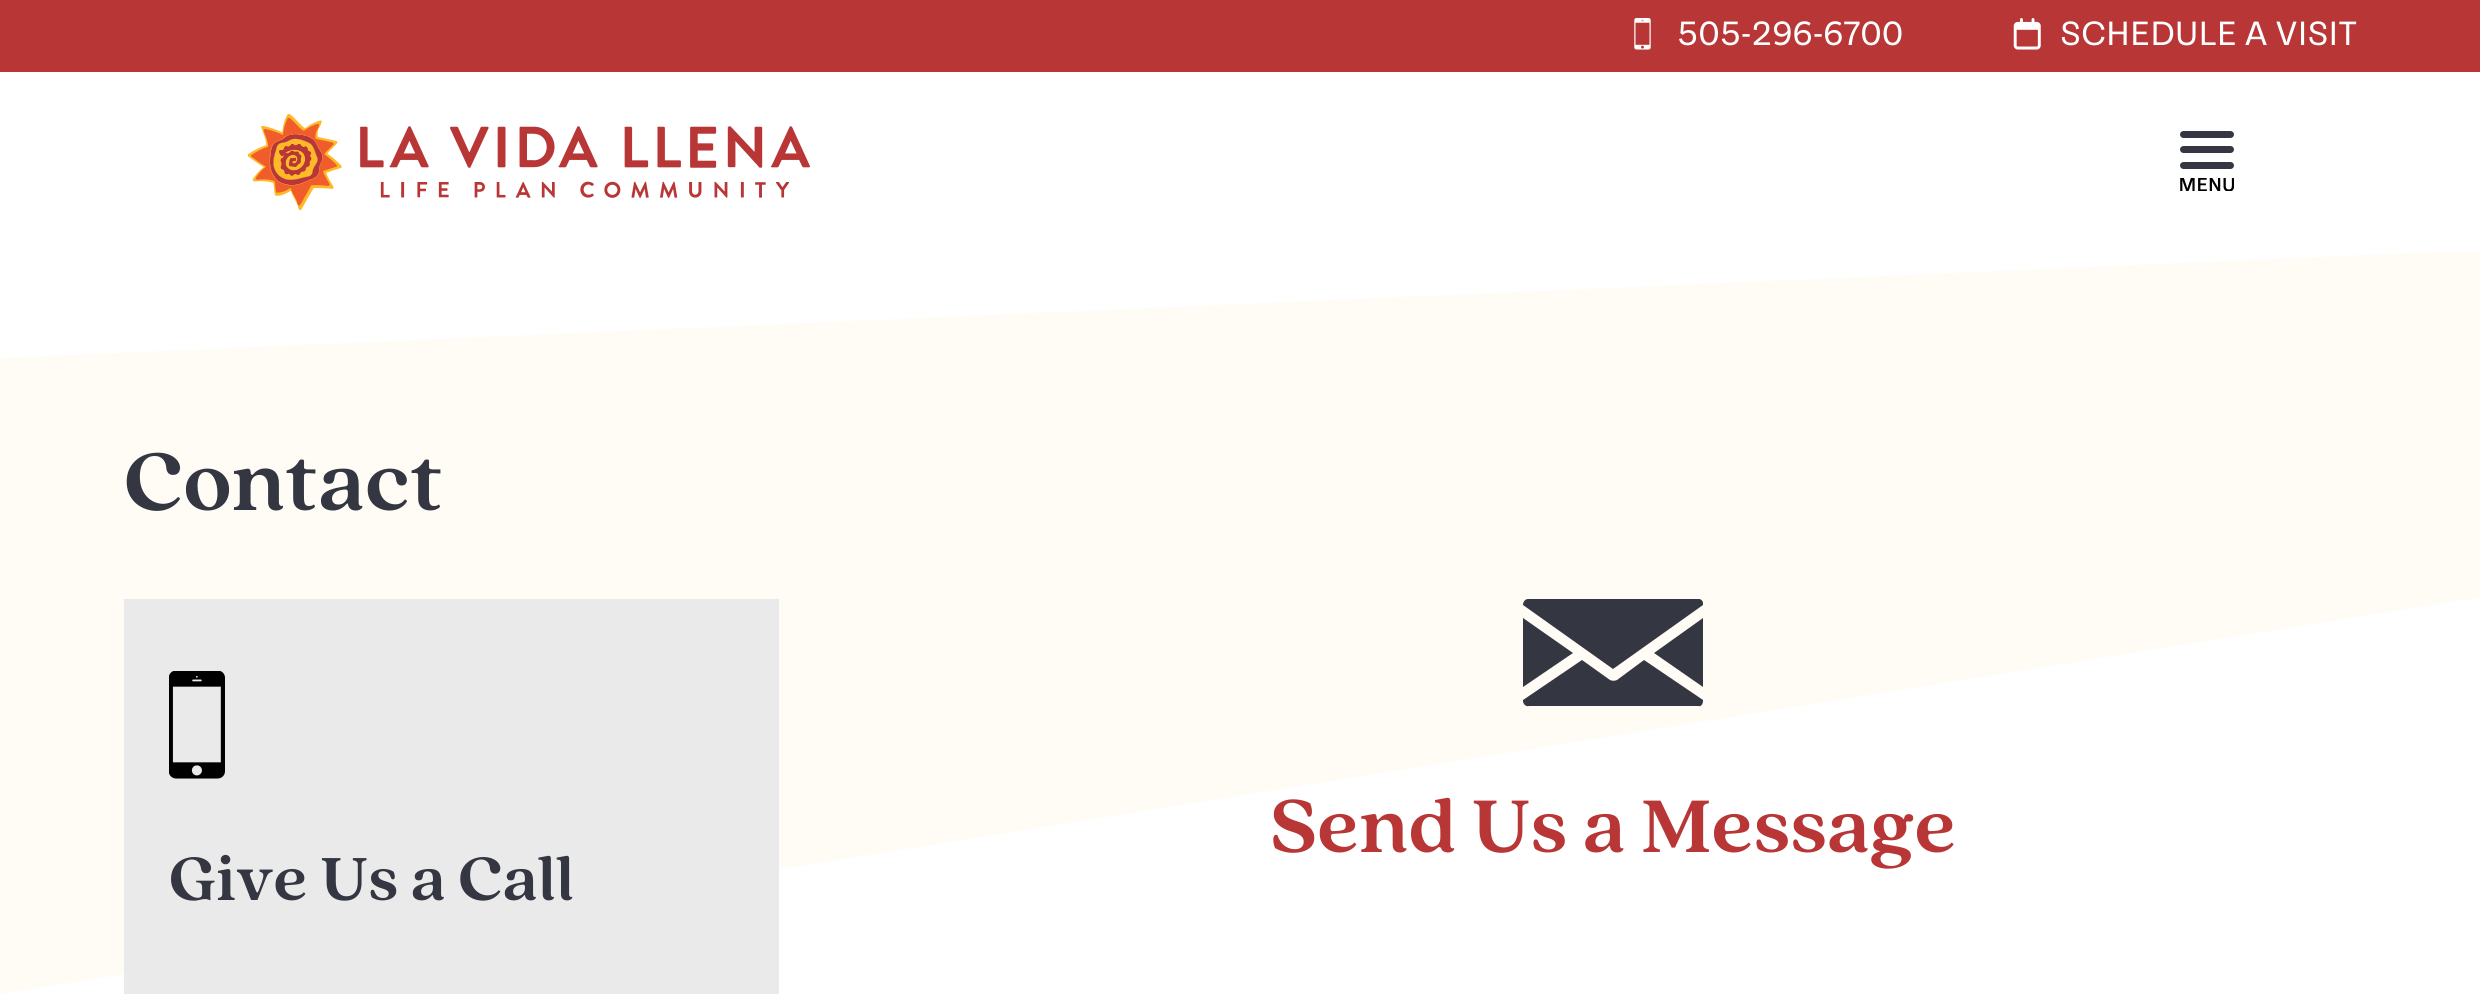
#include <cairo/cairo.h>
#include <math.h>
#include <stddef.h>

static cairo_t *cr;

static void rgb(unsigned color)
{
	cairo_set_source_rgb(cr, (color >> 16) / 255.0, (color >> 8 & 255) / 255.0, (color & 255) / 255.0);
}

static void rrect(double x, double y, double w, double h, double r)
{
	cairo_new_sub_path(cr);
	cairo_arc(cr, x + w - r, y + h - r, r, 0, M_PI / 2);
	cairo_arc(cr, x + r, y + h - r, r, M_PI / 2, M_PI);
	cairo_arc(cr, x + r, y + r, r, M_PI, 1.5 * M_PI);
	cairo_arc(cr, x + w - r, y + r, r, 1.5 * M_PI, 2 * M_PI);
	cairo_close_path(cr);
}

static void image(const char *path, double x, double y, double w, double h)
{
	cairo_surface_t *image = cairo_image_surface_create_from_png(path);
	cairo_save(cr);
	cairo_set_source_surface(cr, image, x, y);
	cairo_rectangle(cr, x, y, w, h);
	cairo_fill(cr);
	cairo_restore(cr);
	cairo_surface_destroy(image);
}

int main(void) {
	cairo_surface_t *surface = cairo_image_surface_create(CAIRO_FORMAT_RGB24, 2480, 994);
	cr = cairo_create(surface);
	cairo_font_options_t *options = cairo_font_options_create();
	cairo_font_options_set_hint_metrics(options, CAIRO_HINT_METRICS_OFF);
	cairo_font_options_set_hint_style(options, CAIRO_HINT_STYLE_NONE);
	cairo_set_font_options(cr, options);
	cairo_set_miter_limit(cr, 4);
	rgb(0xffffff);
	cairo_paint(cr);
	rgb(0xfffcf6);
	cairo_new_path(cr);
	cairo_move_to(cr, 0, 0);
	cairo_line_to(cr, 0, 994);
	cairo_line_to(cr, 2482, 597);
	cairo_line_to(cr, 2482, 0);
	cairo_close_path(cr);
	cairo_fill(cr);
	rgb(0xb83636);
	cairo_rectangle(cr, 0, 0, 2480, 72);
	cairo_fill(cr);
	image("img/1.png", 1634, 18, 17, 32);
	image("img/2.png", 2013, 18, 28, 32);
	rgb(0xffffff);
	cairo_new_path(cr);
	cairo_move_to(cr, 0, 250);
	cairo_line_to(cr, 0, 358);
	cairo_line_to(cr, 2476, 250);
	cairo_close_path(cr);
	cairo_fill(cr);
	cairo_rectangle(cr, 0, 72, 2480, 180);
	cairo_fill(cr);
	image("img/3.png", 248, 113, 562, 97);
	rgb(0x343741);
	rrect(2180, 131, 54, 7, 3.5);
	cairo_fill(cr);
	rrect(2180, 146, 54, 7, 3.5);
	cairo_fill(cr);
	rrect(2180, 162, 54, 7, 3.5);
	cairo_fill(cr);
	image("img/4.png", 2180, 178, 54, 13);
	cairo_new_path(cr);
	cairo_move_to(cr, 1523, 687);
	cairo_line_to(cr, 1523, 618);
	cairo_line_to(cr, 1573, 653);
	cairo_close_path(cr);
	cairo_move_to(cr, 1703, 687);
	cairo_line_to(cr, 1654, 653);
	cairo_line_to(cr, 1703, 618);
	cairo_close_path(cr);
	cairo_move_to(cr, 1582, 660);
	cairo_line_to(cr, 1610, 680);
	cairo_curve_to(cr, 1612, 681, 1615, 681, 1617, 680);
	cairo_line_to(cr, 1644, 660);
	cairo_line_to(cr, 1703, 700);
	cairo_line_to(cr, 1703, 701);
	cairo_curve_to(cr, 1703, 704, 1701, 707, 1698, 706);
	cairo_line_to(cr, 1529, 706);
	cairo_curve_to(cr, 1526, 707, 1523, 704, 1523, 701);
	cairo_line_to(cr, 1523, 700);
	cairo_close_path(cr);
	cairo_move_to(cr, 1703, 605);
	cairo_line_to(cr, 1613, 669);
	cairo_line_to(cr, 1523, 605);
	cairo_curve_to(cr, 1523, 602, 1525, 599, 1528, 599);
	cairo_line_to(cr, 1699, 599);
	cairo_curve_to(cr, 1701, 599, 1703, 601, 1703, 603);
	cairo_close_path(cr);
	cairo_fill(cr);
	rgb(0xeaeaeb);
	cairo_rectangle(cr, 124, 599, 655, 395);
	cairo_fill(cr);
	image("img/5.png", 169, 671, 56, 108);
	cairo_select_font_face(cr, "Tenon", CAIRO_FONT_SLANT_NORMAL, CAIRO_FONT_WEIGHT_NORMAL);
	cairo_set_font_size(cr, 36);
	rgb(0xffffff);
	cairo_move_to(cr, 1677, 45);
	cairo_show_text(cr, "505-296-6700");
	cairo_move_to(cr, 2060, 45);
	cairo_show_text(cr, "SCHEDULE A VISIT");
	cairo_select_font_face(cr, "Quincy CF", CAIRO_FONT_SLANT_NORMAL, CAIRO_FONT_WEIGHT_BOLD);
	cairo_set_font_size(cr, 90);
	rgb(0x343741);
	cairo_move_to(cr, 124, 510);
	cairo_show_text(cr, "Contact");
	cairo_set_font_size(cr, 82.75);
	rgb(0xb83636);
	cairo_move_to(cr, 1270, 852);
	cairo_show_text(cr, "Send Us a Message");
	cairo_set_font_size(cr, 67.5);
	rgb(0x343741);
	cairo_move_to(cr, 169, 900);
	cairo_show_text(cr, "Give Us a Call");
	cairo_surface_write_to_png(surface, "page.png");
	cairo_font_options_destroy(options);
	cairo_destroy(cr);
	cairo_surface_destroy(surface);
	return 0;
}
